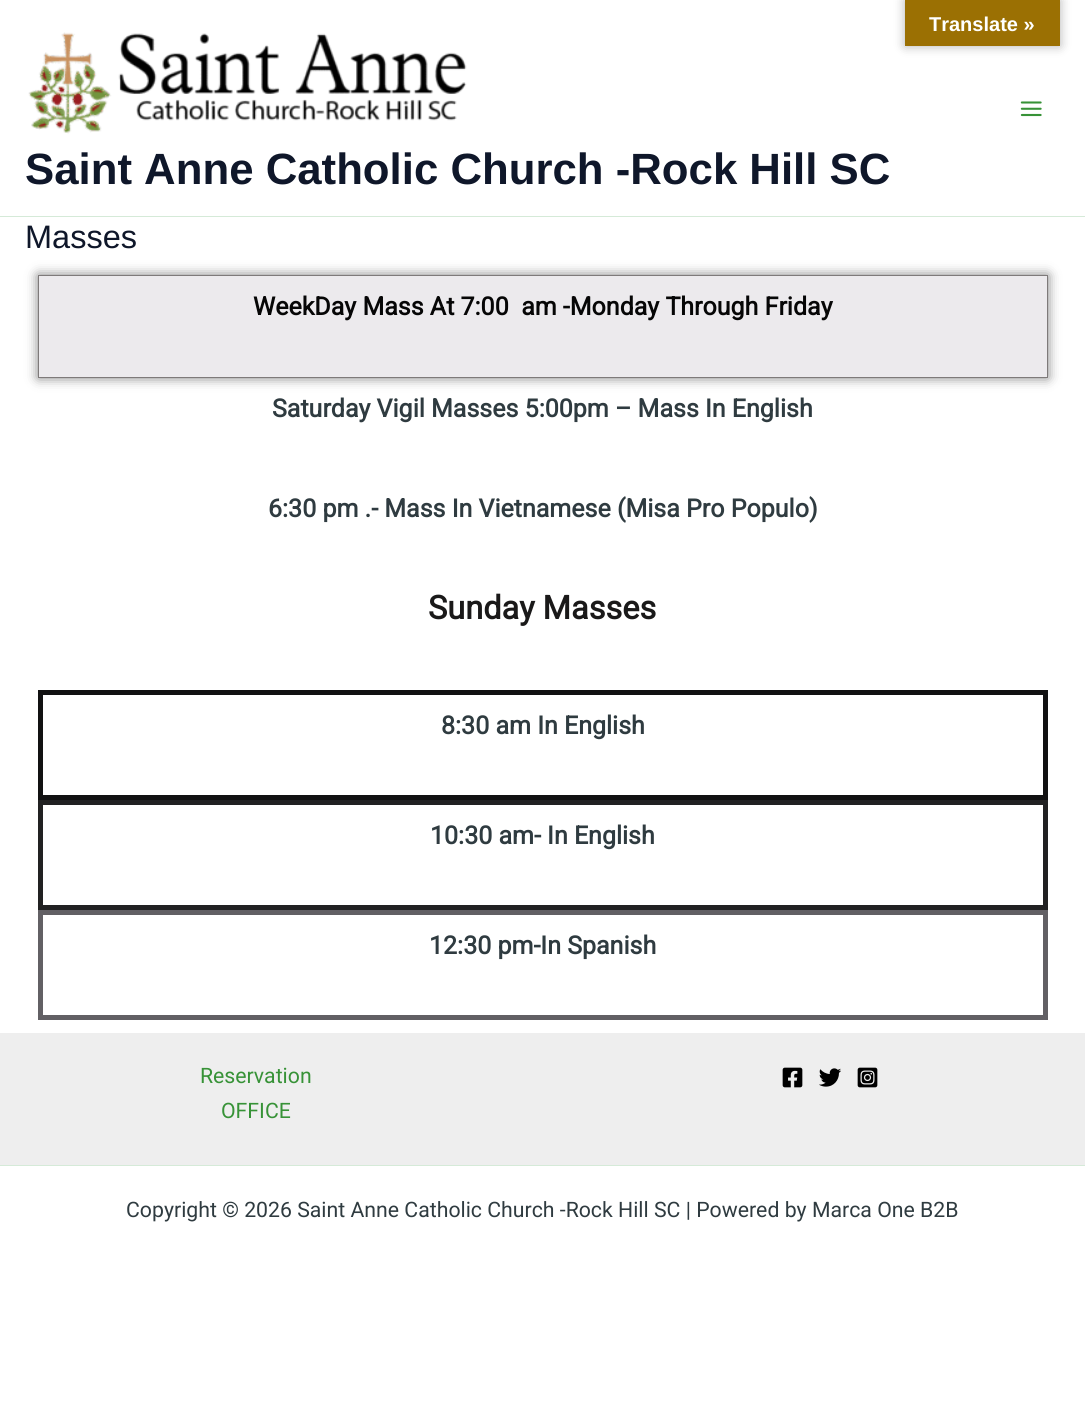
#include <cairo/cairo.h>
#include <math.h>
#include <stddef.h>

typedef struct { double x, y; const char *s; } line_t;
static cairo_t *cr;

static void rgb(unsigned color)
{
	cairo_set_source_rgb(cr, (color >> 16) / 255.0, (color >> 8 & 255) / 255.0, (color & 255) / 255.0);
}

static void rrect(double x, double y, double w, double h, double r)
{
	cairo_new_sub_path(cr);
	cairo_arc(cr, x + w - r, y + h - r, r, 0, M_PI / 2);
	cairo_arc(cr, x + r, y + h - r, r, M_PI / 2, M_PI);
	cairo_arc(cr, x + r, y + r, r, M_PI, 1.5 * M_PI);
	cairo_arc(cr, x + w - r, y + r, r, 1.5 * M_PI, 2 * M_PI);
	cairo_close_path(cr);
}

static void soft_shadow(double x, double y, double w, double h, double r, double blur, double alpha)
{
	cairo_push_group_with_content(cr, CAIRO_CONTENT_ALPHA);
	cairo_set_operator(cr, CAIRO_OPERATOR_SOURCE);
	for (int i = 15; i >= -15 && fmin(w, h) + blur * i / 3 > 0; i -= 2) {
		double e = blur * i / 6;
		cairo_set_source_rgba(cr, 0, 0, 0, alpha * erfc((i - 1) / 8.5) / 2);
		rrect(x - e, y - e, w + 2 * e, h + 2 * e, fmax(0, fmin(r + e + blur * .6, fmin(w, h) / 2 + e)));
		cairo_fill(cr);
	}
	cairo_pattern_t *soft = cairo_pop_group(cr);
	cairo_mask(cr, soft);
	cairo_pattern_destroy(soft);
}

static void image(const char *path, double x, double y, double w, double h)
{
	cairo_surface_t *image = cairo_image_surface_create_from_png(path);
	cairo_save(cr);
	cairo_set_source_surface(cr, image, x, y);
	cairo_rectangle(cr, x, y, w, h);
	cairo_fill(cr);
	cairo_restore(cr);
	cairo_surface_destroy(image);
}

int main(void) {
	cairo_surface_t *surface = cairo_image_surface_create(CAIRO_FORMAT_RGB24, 1085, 1423);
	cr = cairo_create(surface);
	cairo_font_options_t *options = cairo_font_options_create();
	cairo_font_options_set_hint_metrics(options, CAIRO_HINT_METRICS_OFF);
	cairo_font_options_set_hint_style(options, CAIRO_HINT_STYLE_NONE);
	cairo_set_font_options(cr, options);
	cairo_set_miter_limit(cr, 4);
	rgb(0xffffff);
	cairo_paint(cr);
	rgb(0x000000);
	soft_shadow(905, 0, 155, 46, 0, 5.5, 0.3);
	rgb(0x9b7003);
	cairo_rectangle(cr, 905, 0, 155, 46);
	cairo_fill(cr);
	rgb(0xd5ead8);
	cairo_rectangle(cr, 0, 216, 1085, 1);
	cairo_fill(cr);
	image("img/1.png", 1020, 101, 22, 16);
	image("img/2.png", 28, 32, 439, 102);
	rgb(0x000000);
	soft_shadow(38, 275, 1010, 103, 0, 6, 0.5);
	rgb(0xeceaed);
	cairo_rectangle(cr, 38.5, 275.5, 1009, 102);
	cairo_fill_preserve(cr);
	rgb(0x7e7a7a);
	cairo_set_line_width(cr, 1);
	cairo_stroke(cr);
	cairo_rectangle(cr, 40.5, 692.5, 1005, 105);
	rgb(0x111112);
	cairo_set_line_width(cr, 5);
	cairo_stroke(cr);
	cairo_rectangle(cr, 40.5, 802.5, 1005, 105);
	rgb(0x212122);
	cairo_stroke(cr);
	cairo_rectangle(cr, 40.5, 912.5, 1005, 105);
	rgb(0x626064);
	cairo_stroke(cr);
	rgb(0xeeeeee);
	cairo_rectangle(cr, 0, 1033, 1085, 132);
	cairo_fill(cr);
	image("img/3.png", 782, 1067, 21, 21);
	image("img/4.png", 819, 1068, 22, 19);
	image("img/5.png", 857, 1067, 21, 21);
	rgb(0xd5ead8);
	cairo_rectangle(cr, 0, 1165, 1085, 1);
	cairo_fill(cr);
	cairo_select_font_face(cr, "Liberation Sans", CAIRO_FONT_SLANT_NORMAL, CAIRO_FONT_WEIGHT_BOLD);
	cairo_set_font_size(cr, 20);
	rgb(0xffffff);
	cairo_move_to(cr, 929, 31);
	cairo_show_text(cr, "Translate »");
	cairo_set_font_size(cr, 43.75);
	rgb(0x0f172a);
	cairo_move_to(cr, 25, 184);
	cairo_show_text(cr, "Saint Anne Catholic Church -Rock Hill SC");
	cairo_select_font_face(cr, "Liberation Sans", CAIRO_FONT_SLANT_NORMAL, CAIRO_FONT_WEIGHT_NORMAL);
	cairo_set_font_size(cr, 32.5);
	cairo_move_to(cr, 25, 248);
	cairo_show_text(cr, "Masses");
	cairo_select_font_face(cr, "Roboto", CAIRO_FONT_SLANT_NORMAL, CAIRO_FONT_WEIGHT_BOLD);
	cairo_set_font_size(cr, 25);
	rgb(0x060606);
	cairo_move_to(cr, 253, 315);
	cairo_show_text(cr, "WeekDay Mass At 7:00  am -Monday Through Friday");
	rgb(0x2f3b40);
	cairo_move_to(cr, 272, 417);
	cairo_show_text(cr, "Saturday Vigil Masses 5:00pm – Mass In English");
	cairo_move_to(cr, 268, 517);
	cairo_show_text(cr, "6:30 pm .- Mass In Vietnamese (Misa Pro Populo)");
	cairo_set_font_size(cr, 32.5);
	rgb(0x1a1919);
	cairo_move_to(cr, 428, 619);
	cairo_show_text(cr, "Sunday Masses");
	cairo_set_font_size(cr, 25);
	rgb(0x2f3b40);
	{
		static const line_t items[] = {
			{441, 734, "8:30 am In English"},
			{430, 844, "10:30 am- In English"},
			{429, 954, "12:30 pm-In Spanish"},
		};
		for (size_t i = 0; i < sizeof items / sizeof *items; i++) {
			cairo_move_to(cr, items[i].x, items[i].y);
			cairo_show_text(cr, items[i].s);
		}
	}
	cairo_select_font_face(cr, "Roboto", CAIRO_FONT_SLANT_NORMAL, CAIRO_FONT_WEIGHT_NORMAL);
	cairo_set_font_size(cr, 21.25);
	rgb(0x379237);
	cairo_move_to(cr, 200, 1083);
	cairo_show_text(cr, "Reservation");
	cairo_move_to(cr, 221, 1118);
	cairo_show_text(cr, "OFFICE");
	rgb(0x2f3b40);
	cairo_move_to(cr, 126, 1217);
	cairo_show_text(cr, "Copyright © 2026 Saint Anne Catholic Church -Rock Hill SC | Powered by Marca One B2B");
	cairo_surface_write_to_png(surface, "page.png");
	cairo_font_options_destroy(options);
	cairo_destroy(cr);
	cairo_surface_destroy(surface);
	return 0;
}
